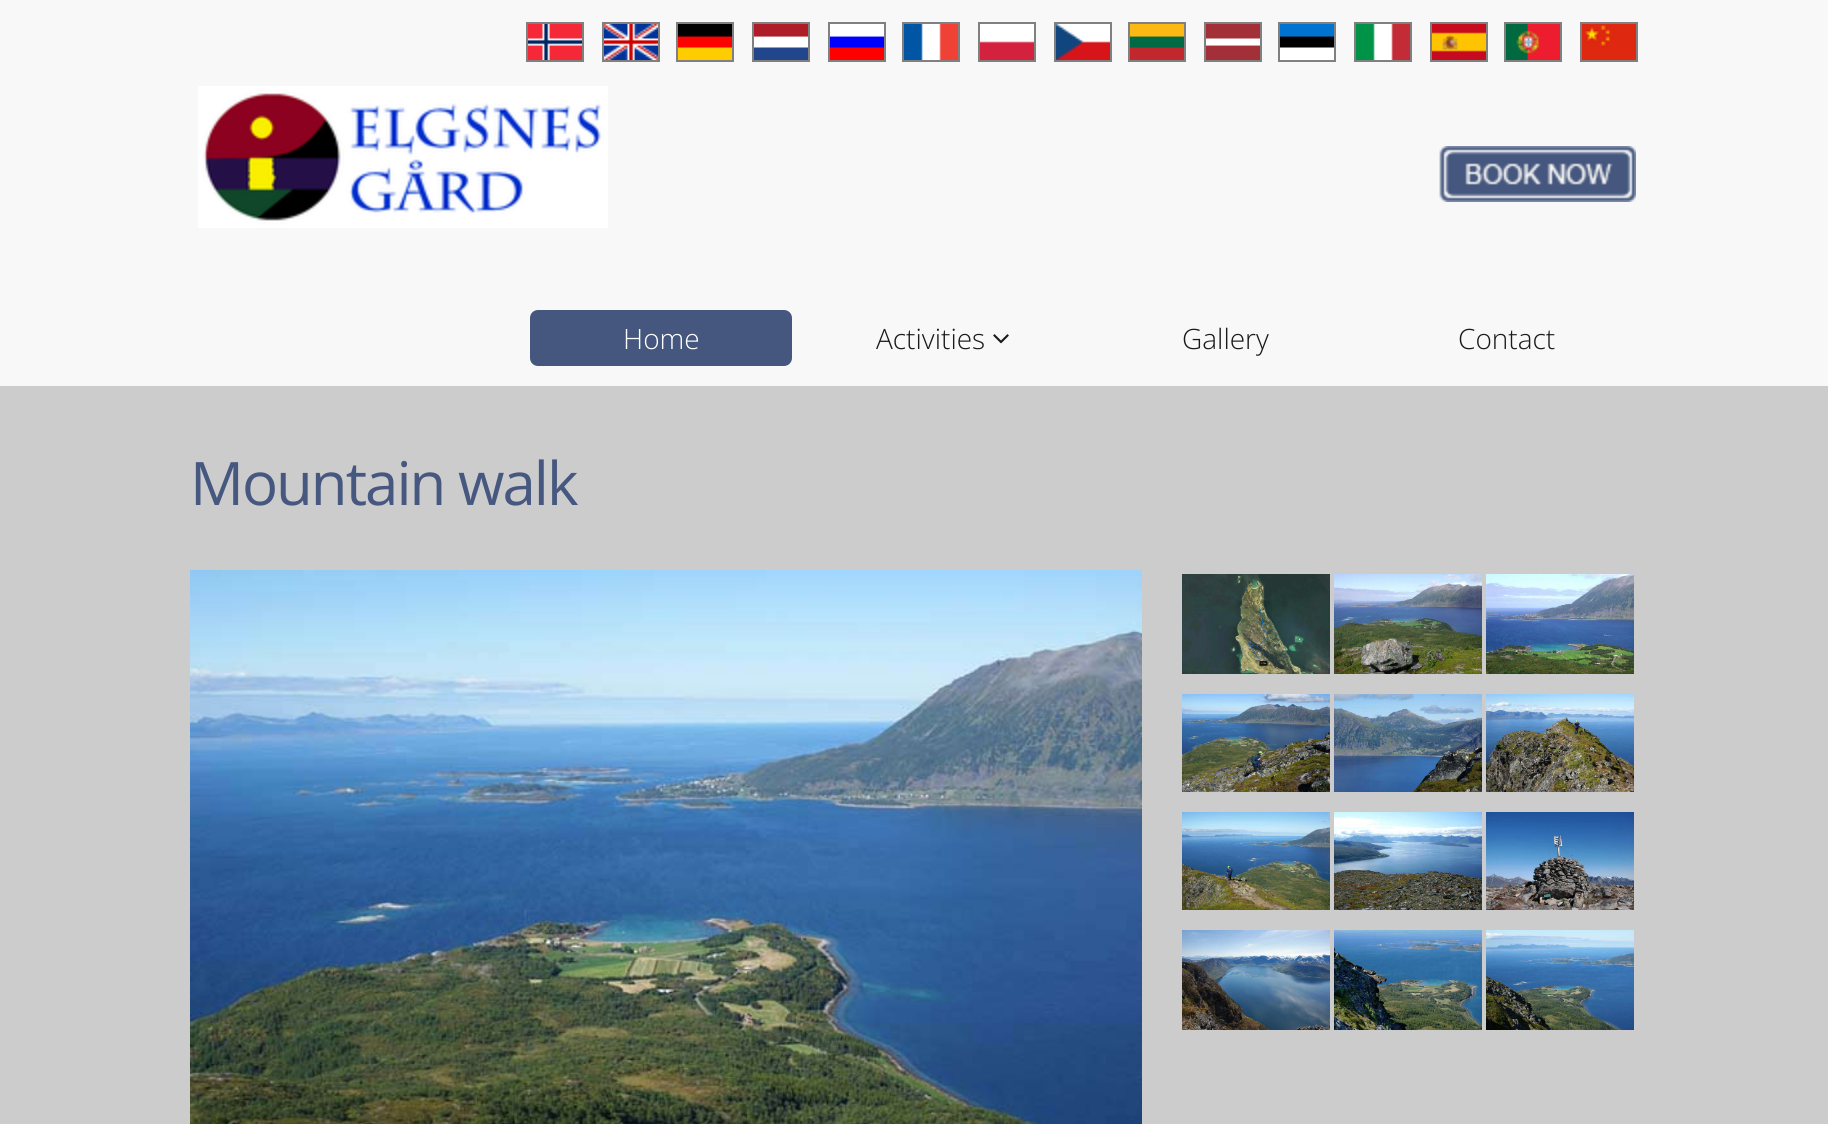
#include <cairo/cairo.h>
#include <math.h>
#include <stddef.h>

typedef struct { double x, y; const char *s; } line_t;
static cairo_t *cr;

static void rgb(unsigned color)
{
	cairo_set_source_rgb(cr, (color >> 16) / 255.0, (color >> 8 & 255) / 255.0, (color & 255) / 255.0);
}

static void tracked(double x, double y, const char *s, double letter, double word)
{
	cairo_move_to(cr, x, y);
	while (*s) {
		char ch[5] = {0};
		int n = 0;
		do ch[n++] = *s++; while ((*s & 0xC0) == 0x80);
		cairo_show_text(cr, ch);
		cairo_rel_move_to(cr, letter + word * (*ch == ' '), 0);
	}
}

static void rrect(double x, double y, double w, double h, double r)
{
	cairo_new_sub_path(cr);
	cairo_arc(cr, x + w - r, y + h - r, r, 0, M_PI / 2);
	cairo_arc(cr, x + r, y + h - r, r, M_PI / 2, M_PI);
	cairo_arc(cr, x + r, y + r, r, M_PI, 1.5 * M_PI);
	cairo_arc(cr, x + w - r, y + r, r, 1.5 * M_PI, 2 * M_PI);
	cairo_close_path(cr);
}

static void image(const char *path, double x, double y, double w, double h)
{
	cairo_surface_t *image = cairo_image_surface_create_from_png(path);
	cairo_save(cr);
	cairo_set_source_surface(cr, image, x, y);
	cairo_rectangle(cr, x, y, w, h);
	cairo_fill(cr);
	cairo_restore(cr);
	cairo_surface_destroy(image);
}

int main(void) {
	cairo_surface_t *surface = cairo_image_surface_create(CAIRO_FORMAT_RGB24, 1828, 1124);
	cr = cairo_create(surface);
	cairo_font_options_t *options = cairo_font_options_create();
	cairo_font_options_set_hint_metrics(options, CAIRO_HINT_METRICS_OFF);
	cairo_font_options_set_hint_style(options, CAIRO_HINT_STYLE_NONE);
	cairo_set_font_options(cr, options);
	cairo_set_miter_limit(cr, 4);
	rgb(0xf8f8f8);
	cairo_paint(cr);
	cairo_rectangle(cr, 527, 23, 56, 38);
	rgb(0x808080);
	cairo_stroke(cr);
	cairo_rectangle(cr, 603, 23, 56, 38);
	cairo_stroke(cr);
	cairo_rectangle(cr, 677, 23, 56, 38);
	cairo_stroke(cr);
	cairo_rectangle(cr, 753, 23, 56, 38);
	cairo_stroke(cr);
	cairo_rectangle(cr, 829, 23, 56, 38);
	cairo_stroke(cr);
	cairo_rectangle(cr, 903, 23, 56, 38);
	cairo_stroke(cr);
	cairo_rectangle(cr, 979, 23, 56, 38);
	cairo_stroke(cr);
	cairo_rectangle(cr, 1055, 23, 56, 38);
	cairo_stroke(cr);
	cairo_rectangle(cr, 1129, 23, 56, 38);
	cairo_stroke(cr);
	cairo_rectangle(cr, 1205, 23, 56, 38);
	cairo_stroke(cr);
	cairo_rectangle(cr, 1279, 23, 56, 38);
	cairo_stroke(cr);
	cairo_rectangle(cr, 1355, 23, 56, 38);
	cairo_stroke(cr);
	cairo_rectangle(cr, 1431, 23, 56, 38);
	cairo_stroke(cr);
	cairo_rectangle(cr, 1505, 23, 56, 38);
	cairo_stroke(cr);
	cairo_rectangle(cr, 1581, 23, 56, 38);
	cairo_stroke(cr);
	image("img/1.png", 528, 24, 54, 36);
	image("img/2.png", 604, 24, 54, 36);
	image("img/3.png", 678, 24, 54, 36);
	image("img/4.png", 754, 24, 54, 36);
	image("img/5.png", 830, 24, 54, 36);
	image("img/6.png", 904, 24, 54, 36);
	image("img/7.png", 980, 24, 54, 36);
	image("img/8.png", 1056, 24, 54, 36);
	image("img/9.png", 1130, 24, 54, 36);
	image("img/10.png", 1206, 24, 54, 36);
	image("img/11.png", 1280, 24, 54, 36);
	image("img/12.png", 1356, 24, 54, 36);
	image("img/13.png", 1432, 24, 54, 36);
	image("img/14.png", 1506, 24, 54, 36);
	image("img/15.png", 1582, 24, 54, 36);
	image("img/16.png", 198, 86, 410, 142);
	image("img/17.png", 1439, 146, 197, 56);
	rgb(0x45577e);
	rrect(530, 310, 262, 56, 8);
	cairo_fill(cr);
	image("img/18.png", 993, 334, 16, 10);
	rgb(0xcccccc);
	cairo_rectangle(cr, 0, 386, 1828, 738);
	cairo_fill(cr);
	image("img/19.png", 190, 570, 952, 554);
	image("img/20.png", 1182, 574, 148, 100);
	image("img/21.png", 1334, 574, 148, 100);
	image("img/22.png", 1486, 574, 148, 100);
	image("img/23.png", 1182, 694, 148, 98);
	image("img/24.png", 1334, 694, 148, 98);
	image("img/25.png", 1486, 694, 148, 98);
	image("img/26.png", 1182, 812, 148, 98);
	image("img/27.png", 1334, 812, 148, 98);
	image("img/28.png", 1486, 812, 148, 98);
	image("img/29.png", 1182, 930, 148, 100);
	image("img/30.png", 1334, 930, 148, 100);
	image("img/31.png", 1486, 930, 148, 100);
	cairo_select_font_face(cr, "Open Sans Light", CAIRO_FONT_SLANT_NORMAL, CAIRO_FONT_WEIGHT_NORMAL);
	cairo_set_font_size(cr, 28);
	rgb(0xffffff);
	cairo_move_to(cr, 623, 349);
	cairo_show_text(cr, "Home");
	rgb(0x1a1a1a);
	{
		static const line_t items[] = {
			{876, 349, "Activities"},
			{1182, 349, "Gallery"},
			{1458, 349, "Contact"},
		};
		for (size_t i = 0; i < sizeof items / sizeof *items; i++) {
			cairo_move_to(cr, items[i].x, items[i].y);
			cairo_show_text(cr, items[i].s);
		}
	}
	cairo_select_font_face(cr, "Open Sans", CAIRO_FONT_SLANT_NORMAL, CAIRO_FONT_WEIGHT_NORMAL);
	cairo_set_font_size(cr, 60);
	rgb(0x46587f);
	tracked(190, 505, "Mountain walk", -2, 0);
	cairo_surface_write_to_png(surface, "page.png");
	cairo_font_options_destroy(options);
	cairo_destroy(cr);
	cairo_surface_destroy(surface);
	return 0;
}
